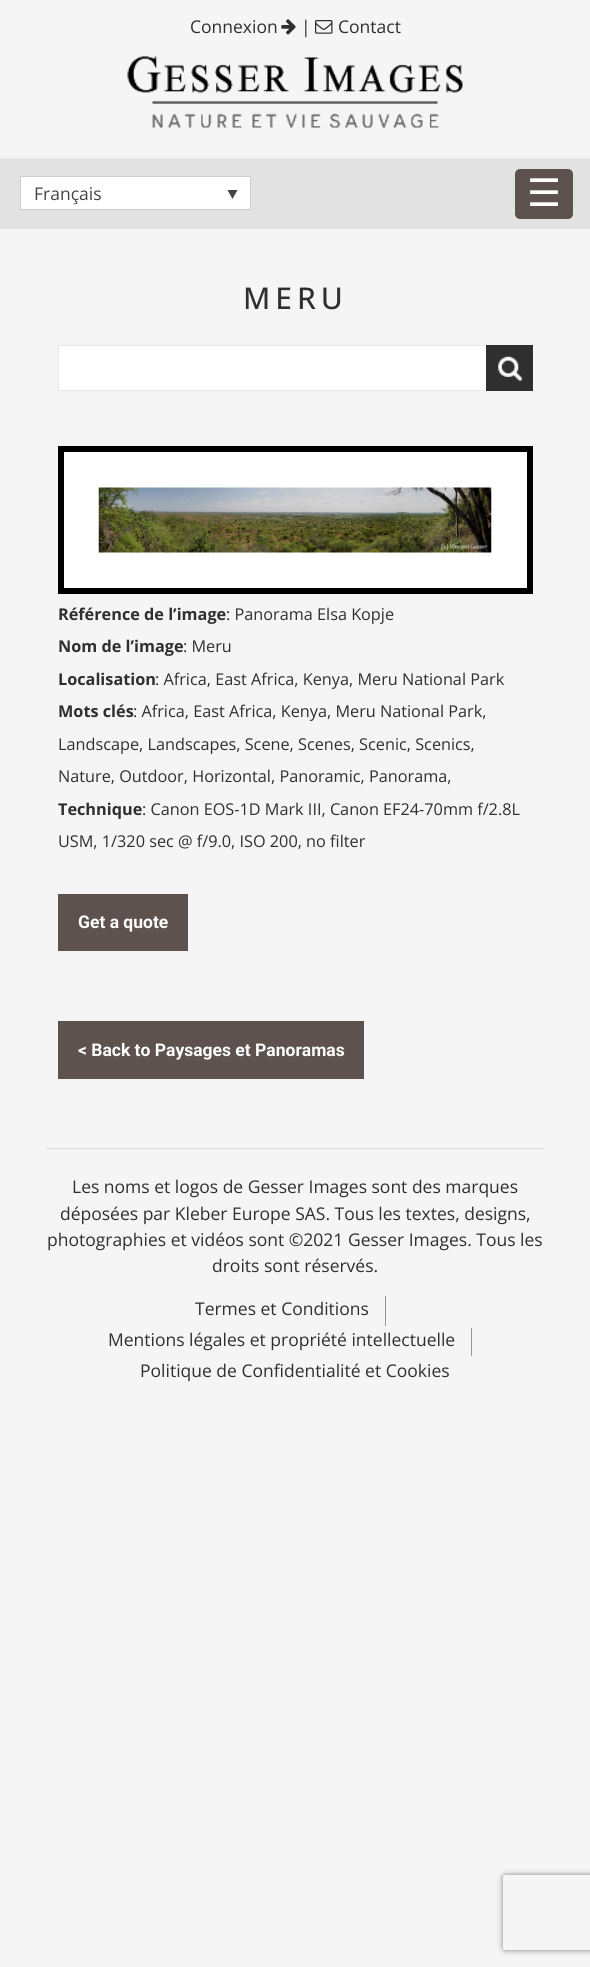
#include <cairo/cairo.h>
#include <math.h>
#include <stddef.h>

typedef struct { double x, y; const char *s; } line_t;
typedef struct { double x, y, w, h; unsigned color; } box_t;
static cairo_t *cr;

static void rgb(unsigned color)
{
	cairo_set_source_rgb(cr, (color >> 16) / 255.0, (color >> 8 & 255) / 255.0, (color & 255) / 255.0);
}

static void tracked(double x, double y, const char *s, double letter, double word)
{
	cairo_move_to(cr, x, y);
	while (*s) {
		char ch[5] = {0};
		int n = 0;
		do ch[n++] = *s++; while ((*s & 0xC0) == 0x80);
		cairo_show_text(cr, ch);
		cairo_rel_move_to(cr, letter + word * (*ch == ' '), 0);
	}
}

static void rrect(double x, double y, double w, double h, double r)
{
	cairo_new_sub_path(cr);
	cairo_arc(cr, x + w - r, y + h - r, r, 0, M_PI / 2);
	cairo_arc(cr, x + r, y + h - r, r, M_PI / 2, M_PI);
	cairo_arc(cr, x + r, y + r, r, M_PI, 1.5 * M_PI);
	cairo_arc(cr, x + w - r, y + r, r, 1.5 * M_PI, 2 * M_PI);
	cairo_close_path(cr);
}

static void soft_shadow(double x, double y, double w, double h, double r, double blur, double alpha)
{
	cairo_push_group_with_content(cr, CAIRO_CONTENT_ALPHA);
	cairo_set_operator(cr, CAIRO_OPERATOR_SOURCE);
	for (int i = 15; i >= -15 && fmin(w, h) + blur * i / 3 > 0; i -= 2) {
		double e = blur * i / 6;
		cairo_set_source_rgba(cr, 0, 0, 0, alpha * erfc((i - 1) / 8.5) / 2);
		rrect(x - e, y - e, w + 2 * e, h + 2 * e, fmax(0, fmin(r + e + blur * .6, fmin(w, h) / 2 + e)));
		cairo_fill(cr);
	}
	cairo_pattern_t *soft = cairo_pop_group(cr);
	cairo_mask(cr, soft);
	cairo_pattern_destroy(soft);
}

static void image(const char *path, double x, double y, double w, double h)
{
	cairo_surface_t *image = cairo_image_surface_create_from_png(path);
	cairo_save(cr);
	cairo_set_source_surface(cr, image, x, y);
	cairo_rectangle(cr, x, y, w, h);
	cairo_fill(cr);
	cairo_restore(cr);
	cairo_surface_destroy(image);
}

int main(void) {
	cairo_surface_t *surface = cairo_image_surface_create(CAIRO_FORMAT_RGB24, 590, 1967);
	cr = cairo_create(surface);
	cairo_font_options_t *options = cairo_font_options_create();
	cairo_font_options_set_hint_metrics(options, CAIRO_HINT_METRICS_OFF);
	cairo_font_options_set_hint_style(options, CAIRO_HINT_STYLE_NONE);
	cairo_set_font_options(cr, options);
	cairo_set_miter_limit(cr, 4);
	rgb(0xf5f5f5);
	cairo_paint(cr);
	image("img/1.png", 281, 19, 15, 16);
	image("img/2.png", 315, 20, 18, 14);
	image("img/3.png", 127, 56, 336, 72);
	rgb(0xe8e8e8);
	cairo_rectangle(cr, 0, 158, 590, 1);
	cairo_fill(cr);
	rgb(0xe2e2e2);
	cairo_rectangle(cr, 0, 159, 590, 70);
	cairo_fill(cr);
	rgb(0xffffff);
	cairo_rectangle(cr, 20.5, 176.5, 230, 33);
	cairo_fill_preserve(cr);
	rgb(0xcdcdcd);
	cairo_set_line_width(cr, 1);
	cairo_stroke(cr);
	rgb(0x444444);
	cairo_new_path(cr);
	cairo_move_to(cr, 227.5, 190);
	cairo_line_to(cr, 237.5, 190);
	cairo_line_to(cr, 232.5, 199);
	cairo_close_path(cr);
	cairo_fill(cr);
	rgb(0x5d524d);
	rrect(515, 169, 58, 50, 5);
	cairo_fill(cr);
	rgb(0xffffff);
	cairo_rectangle(cr, 59, 346, 427, 44);
	cairo_fill(cr);
	cairo_rectangle(cr, 58.5, 345.5, 474, 45);
	rgb(0xe8e8e8);
	cairo_stroke(cr);
	rgb(0x2f2f2f);
	cairo_rectangle(cr, 486, 345, 47, 46);
	cairo_fill(cr);
	image("img/4.png", 498, 356, 25, 25);
	rgb(0xffffff);
	cairo_rectangle(cr, 61, 449, 469, 142);
	cairo_fill_preserve(cr);
	rgb(0x000000);
	cairo_set_line_width(cr, 6);
	cairo_stroke(cr);
	image("img/5.png", 98, 487, 394, 66);
	{
		static const box_t items[] = {
			{58, 894, 130, 57, 0x5d524d},
			{58, 1021, 306, 58, 0x5d524d},
			{46, 1148, 498, 1, 0xdadada},
			{385, 1296, 1, 30, 0x969696},
			{471, 1328, 1, 28, 0x969696},
		};
		for (size_t i = 0; i < sizeof items / sizeof *items; i++) {
			rgb(items[i].color);
			cairo_rectangle(cr, items[i].x, items[i].y, items[i].w, items[i].h);
			cairo_fill(cr);
		}
	}
	cairo_save(cr);
	cairo_set_fill_rule(cr, CAIRO_FILL_RULE_EVEN_ODD);
	cairo_new_path(cr);
	cairo_move_to(cr, 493, 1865);
	cairo_line_to(cr, 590, 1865);
	cairo_line_to(cr, 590, 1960);
	cairo_line_to(cr, 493, 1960);
	cairo_close_path(cr);
	cairo_move_to(cr, 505.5, 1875);
	cairo_line_to(cr, 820.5, 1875);
	cairo_curve_to(cr, 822, 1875, 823, 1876, 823, 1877.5);
	cairo_line_to(cr, 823, 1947.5);
	cairo_curve_to(cr, 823, 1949, 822, 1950, 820.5, 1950);
	cairo_line_to(cr, 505.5, 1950);
	cairo_curve_to(cr, 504, 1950, 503, 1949, 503, 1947.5);
	cairo_line_to(cr, 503, 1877.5);
	cairo_curve_to(cr, 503, 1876, 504, 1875, 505.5, 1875);
	cairo_close_path(cr);
	cairo_clip(cr);
	rgb(0x808080);
	soft_shadow(503, 1875, 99, 75, 2.5, 3, 1);
	cairo_restore(cr);
	cairo_select_font_face(cr, "Open Sans", CAIRO_FONT_SLANT_NORMAL, CAIRO_FONT_WEIGHT_NORMAL);
	cairo_set_font_size(cr, 17.5);
	rgb(0x2f2f2f);
	{
		static const line_t items[] = {
			{190, 33, "Connexion"},
			{301, 33, "|"},
			{338, 33, "Contact"},
		};
		for (size_t i = 0; i < sizeof items / sizeof *items; i++) {
			cairo_move_to(cr, items[i].x, items[i].y);
			cairo_show_text(cr, items[i].s);
		}
	}
	rgb(0x444444);
	cairo_move_to(cr, 34, 200);
	cairo_show_text(cr, "Français");
	cairo_select_font_face(cr, "DejaVu Sans", CAIRO_FONT_SLANT_NORMAL, CAIRO_FONT_WEIGHT_NORMAL);
	cairo_set_font_size(cr, 38);
	rgb(0xffffff);
	cairo_move_to(cr, 527, 206);
	cairo_show_text(cr, "☰");
	cairo_select_font_face(cr, "Open Sans Medium", CAIRO_FONT_SLANT_NORMAL, CAIRO_FONT_WEIGHT_NORMAL);
	cairo_set_font_size(cr, 30);
	rgb(0x2f2f2f);
	tracked(243, 309, "MERU", 5, 0);
	cairo_select_font_face(cr, "Open Sans", CAIRO_FONT_SLANT_NORMAL, CAIRO_FONT_WEIGHT_BOLD);
	cairo_set_font_size(cr, 16.25);
	cairo_move_to(cr, 58, 620);
	cairo_show_text(cr, "Référence de l’image");
	cairo_select_font_face(cr, "Open Sans", CAIRO_FONT_SLANT_NORMAL, CAIRO_FONT_WEIGHT_NORMAL);
	cairo_move_to(cr, 226, 620);
	cairo_show_text(cr, ": Panorama Elsa Kopje");
	cairo_select_font_face(cr, "Open Sans", CAIRO_FONT_SLANT_NORMAL, CAIRO_FONT_WEIGHT_BOLD);
	cairo_move_to(cr, 58, 652);
	cairo_show_text(cr, "Nom de l’image");
	cairo_select_font_face(cr, "Open Sans", CAIRO_FONT_SLANT_NORMAL, CAIRO_FONT_WEIGHT_NORMAL);
	cairo_move_to(cr, 183, 652);
	cairo_show_text(cr, ": Meru");
	cairo_select_font_face(cr, "Open Sans", CAIRO_FONT_SLANT_NORMAL, CAIRO_FONT_WEIGHT_BOLD);
	cairo_move_to(cr, 58, 685);
	cairo_show_text(cr, "Localisation");
	cairo_select_font_face(cr, "Open Sans", CAIRO_FONT_SLANT_NORMAL, CAIRO_FONT_WEIGHT_NORMAL);
	cairo_move_to(cr, 155, 685);
	cairo_show_text(cr, ": Africa, East Africa, Kenya, Meru National Park");
	cairo_select_font_face(cr, "Open Sans", CAIRO_FONT_SLANT_NORMAL, CAIRO_FONT_WEIGHT_BOLD);
	cairo_move_to(cr, 58, 717);
	cairo_show_text(cr, "Mots clés");
	cairo_select_font_face(cr, "Open Sans", CAIRO_FONT_SLANT_NORMAL, CAIRO_FONT_WEIGHT_NORMAL);
	{
		static const line_t items[] = {
			{133, 717, ": Africa, East Africa, Kenya, Meru National Park,"},
			{58, 750, "Landscape, Landscapes, Scene, Scenes, Scenic, Scenics,"},
			{58, 782, "Nature, Outdoor, Horizontal, Panoramic, Panorama,"},
		};
		for (size_t i = 0; i < sizeof items / sizeof *items; i++) {
			cairo_move_to(cr, items[i].x, items[i].y);
			cairo_show_text(cr, items[i].s);
		}
	}
	cairo_select_font_face(cr, "Open Sans", CAIRO_FONT_SLANT_NORMAL, CAIRO_FONT_WEIGHT_BOLD);
	cairo_move_to(cr, 58, 815);
	cairo_show_text(cr, "Technique");
	cairo_select_font_face(cr, "Open Sans", CAIRO_FONT_SLANT_NORMAL, CAIRO_FONT_WEIGHT_NORMAL);
	cairo_move_to(cr, 142, 815);
	cairo_show_text(cr, ": Canon EOS-1D Mark III, Canon EF24-70mm f/2.8L");
	cairo_move_to(cr, 58, 847);
	cairo_show_text(cr, "USM, 1/320 sec @ f/9.0, ISO 200, no filter");
	cairo_select_font_face(cr, "Roboto", CAIRO_FONT_SLANT_NORMAL, CAIRO_FONT_WEIGHT_BOLD);
	cairo_set_font_size(cr, 17.5);
	rgb(0xffffff);
	cairo_move_to(cr, 78, 928);
	cairo_show_text(cr, "Get a quote");
	cairo_move_to(cr, 78, 1056);
	cairo_show_text(cr, "< Back to Paysages et Panoramas");
	cairo_select_font_face(cr, "Open Sans", CAIRO_FONT_SLANT_NORMAL, CAIRO_FONT_WEIGHT_NORMAL);
	rgb(0x2f2f2f);
	{
		static const line_t items[] = {
			{72, 1193, "Les noms et logos de Gesser Images sont des marques"},
			{60, 1220, "déposées par Kleber Europe SAS. Tous les textes, designs,"},
			{47, 1246, "photographies et vidéos sont ©2021 Gesser Images. Tous les"},
			{212, 1272, "droits sont réservés."},
			{195, 1315, "Termes et Conditions"},
			{108, 1346, "Mentions légales et propriété intellectuelle"},
			{140, 1377, "Politique de Confidentialité et Cookies"},
		};
		for (size_t i = 0; i < sizeof items / sizeof *items; i++) {
			cairo_move_to(cr, items[i].x, items[i].y);
			cairo_show_text(cr, items[i].s);
		}
	}
	cairo_surface_write_to_png(surface, "page.png");
	cairo_font_options_destroy(options);
	cairo_destroy(cr);
	cairo_surface_destroy(surface);
	return 0;
}
